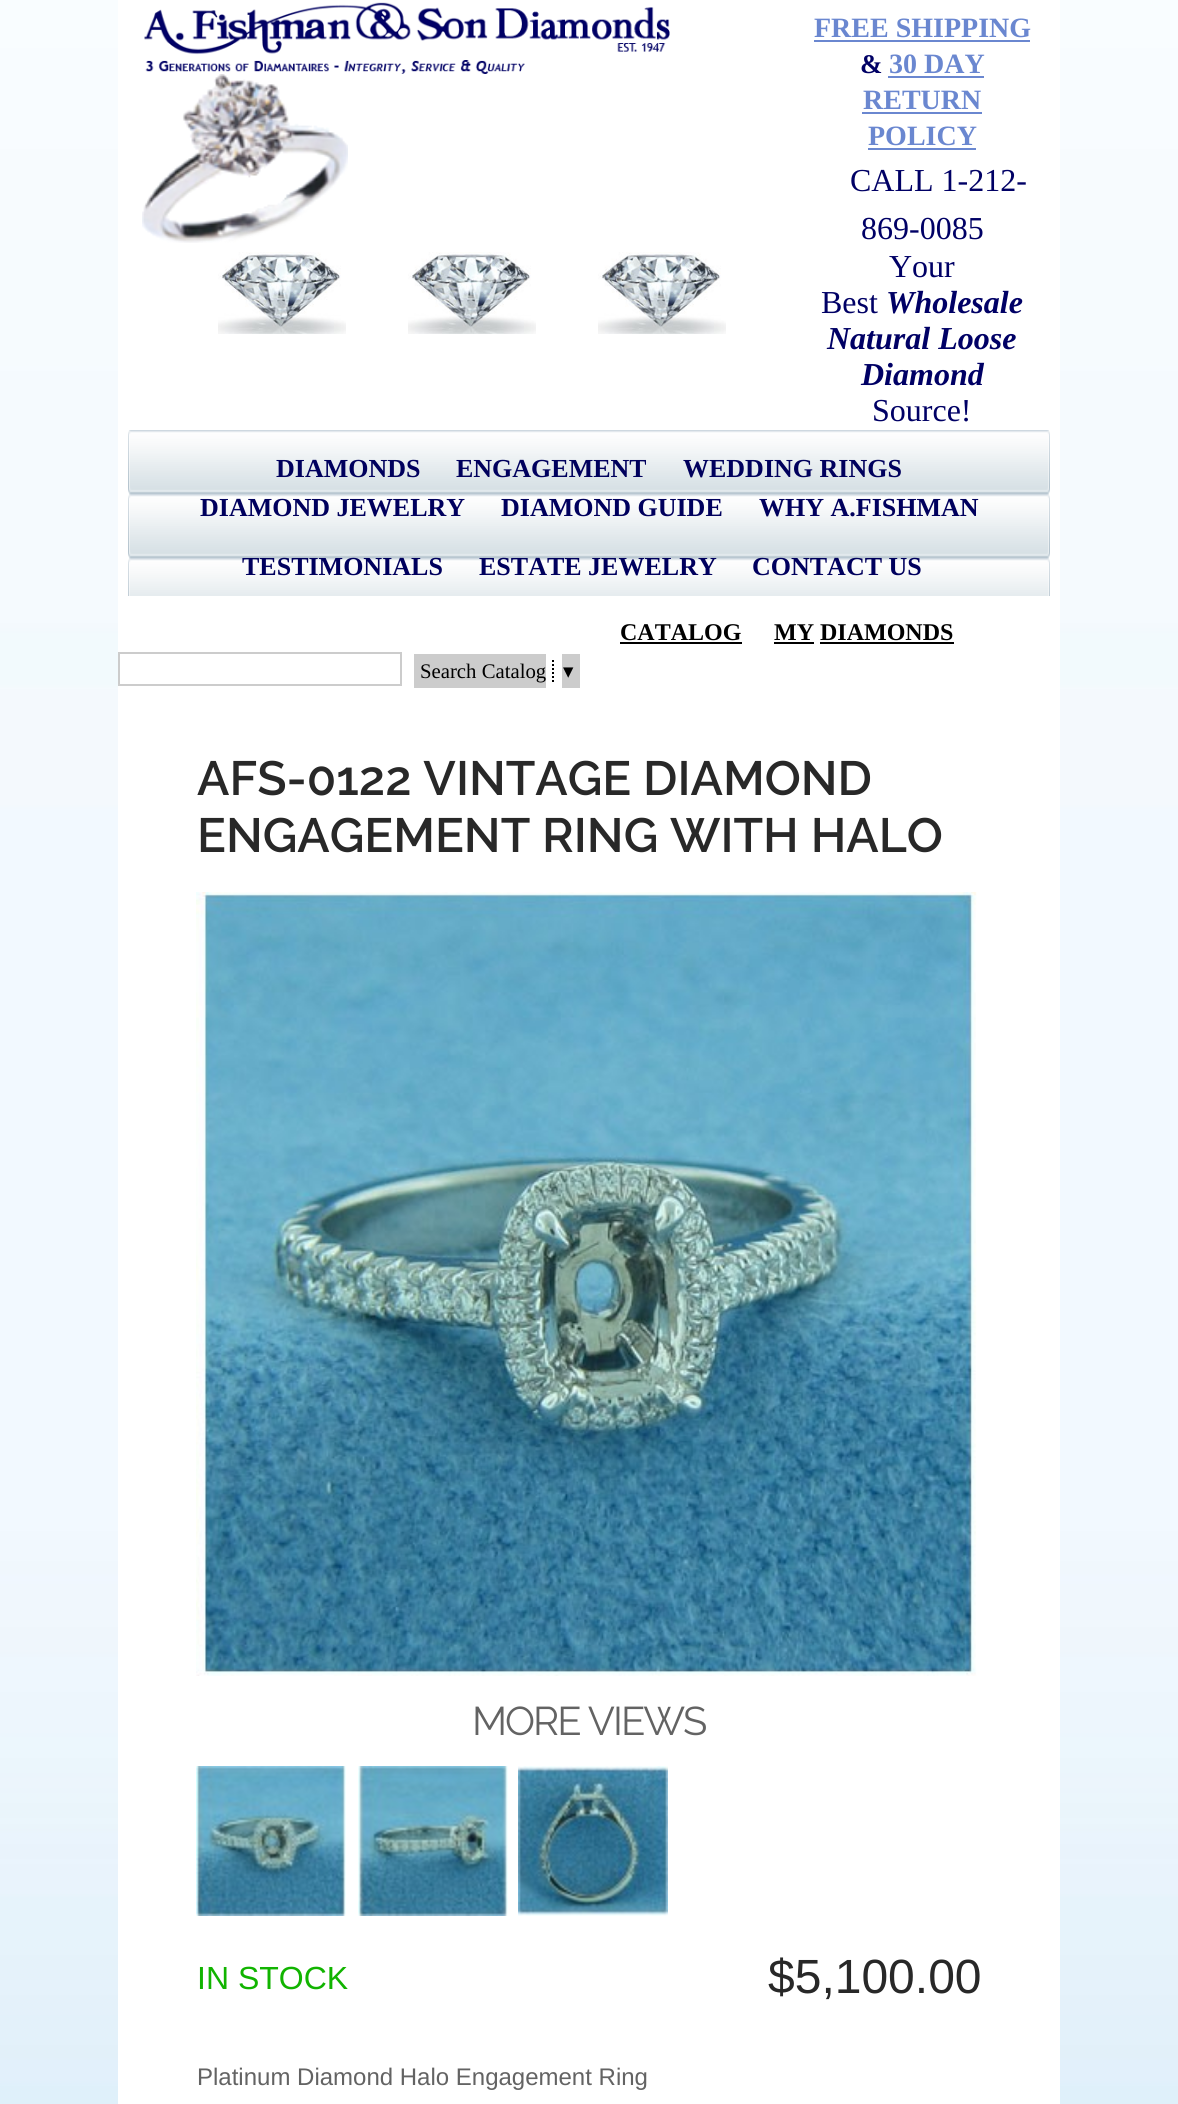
#include <cairo/cairo.h>
#include <math.h>
#include <stddef.h>

typedef struct { double x, y; const char *s; } line_t;
typedef struct { double x, y, w, h; unsigned color; } box_t;
static cairo_t *cr;

static void rgb(unsigned color)
{
	cairo_set_source_rgb(cr, (color >> 16) / 255.0, (color >> 8 & 255) / 255.0, (color & 255) / 255.0);
}

static void tracked(double x, double y, const char *s, double letter, double word)
{
	cairo_move_to(cr, x, y);
	while (*s) {
		char ch[5] = {0};
		int n = 0;
		do ch[n++] = *s++; while ((*s & 0xC0) == 0x80);
		cairo_show_text(cr, ch);
		cairo_rel_move_to(cr, letter + word * (*ch == ' '), 0);
	}
}

static void image(const char *path, double x, double y, double w, double h)
{
	cairo_surface_t *image = cairo_image_surface_create_from_png(path);
	cairo_save(cr);
	cairo_set_source_surface(cr, image, x, y);
	cairo_rectangle(cr, x, y, w, h);
	cairo_fill(cr);
	cairo_restore(cr);
	cairo_surface_destroy(image);
}

int main(void) {
	cairo_surface_t *surface = cairo_image_surface_create(CAIRO_FORMAT_RGB24, 1178, 2104);
	cr = cairo_create(surface);
	cairo_font_options_t *options = cairo_font_options_create();
	cairo_font_options_set_hint_metrics(options, CAIRO_HINT_METRICS_OFF);
	cairo_font_options_set_hint_style(options, CAIRO_HINT_STYLE_NONE);
	cairo_set_font_options(cr, options);
	cairo_set_miter_limit(cr, 4);
	rgb(0xffffff);
	cairo_paint(cr);
	image("img/1.png", 0, 0, 1178, 2104);
	rgb(0xffffff);
	cairo_rectangle(cr, 118, 0, 942, 2104);
	cairo_fill(cr);
	image("img/2.png", 144, 2, 526, 72);
	image("img/3.png", 142, 74, 206, 169);
	image("img/4.png", 218, 252, 128, 82);
	image("img/4.png", 408, 252, 128, 82);
	image("img/4.png", 598, 252, 128, 82);
	{
		static const box_t items[] = {
			{814, 40, 216, 2, 0x6a87d0},
			{888, 76, 96, 2, 0x6a87d0},
			{862, 112, 120, 2, 0x6a87d0},
			{868, 148, 108, 2, 0x6a87d0},
		};
		for (size_t i = 0; i < sizeof items / sizeof *items; i++) {
			rgb(items[i].color);
			cairo_rectangle(cr, items[i].x, items[i].y, items[i].w, items[i].h);
			cairo_fill(cr);
		}
	}
	image("img/5.png", 128, 430, 922, 166);
	{
		static const box_t items[] = {
			{620, 642, 122, 2, 0x000000},
			{774, 642, 40, 2, 0x000000},
			{820, 642, 134, 2, 0x000000},
		};
		for (size_t i = 0; i < sizeof items / sizeof *items; i++) {
			rgb(items[i].color);
			cairo_rectangle(cr, items[i].x, items[i].y, items[i].w, items[i].h);
			cairo_fill(cr);
		}
	}
	cairo_rectangle(cr, 119, 653, 282, 32);
	rgb(0xcccccc);
	cairo_stroke(cr);
	cairo_rectangle(cr, 414, 654, 132, 34);
	cairo_fill(cr);
	cairo_new_path(cr);
	cairo_move_to(cr, 553, 660);
	cairo_line_to(cr, 553, 682);
	rgb(0x000000);
	cairo_set_dash(cr, (double[]){2, 2}, 2, 0);
	cairo_stroke(cr);
	rgb(0xcccccc);
	cairo_rectangle(cr, 562, 654, 18, 34);
	cairo_fill(cr);
	image("img/6.png", 196, 892, 781, 784);
	image("img/7.png", 196, 1766, 150, 150);
	image("img/8.png", 358, 1766, 150, 150);
	image("img/9.png", 518, 1766, 150, 150);
	cairo_select_font_face(cr, "Liberation Serif", CAIRO_FONT_SLANT_NORMAL, CAIRO_FONT_WEIGHT_BOLD);
	cairo_set_font_size(cr, 28);
	rgb(0x6a87d0);
	cairo_move_to(cr, 814, 37);
	cairo_show_text(cr, "FREE SHIPPING");
	cairo_set_font_size(cr, 27);
	rgb(0x000065);
	cairo_move_to(cr, 860, 73);
	cairo_show_text(cr, "&");
	cairo_set_font_size(cr, 28);
	rgb(0x6a87d0);
	{
		static const line_t items[] = {
			{889, 73, "30 DAY"},
			{863, 109, "RETURN"},
			{868, 145, "POLICY"},
		};
		for (size_t i = 0; i < sizeof items / sizeof *items; i++) {
			cairo_move_to(cr, items[i].x, items[i].y);
			cairo_show_text(cr, items[i].s);
		}
	}
	cairo_select_font_face(cr, "Liberation Serif", CAIRO_FONT_SLANT_NORMAL, CAIRO_FONT_WEIGHT_NORMAL);
	cairo_set_font_size(cr, 32);
	rgb(0x000065);
	{
		static const line_t items[] = {
			{850, 191, "CALL 1-212-"},
			{861, 239, "869-0085"},
			{889, 277, "Your"},
			{821, 313, "Best"},
		};
		for (size_t i = 0; i < sizeof items / sizeof *items; i++) {
			cairo_move_to(cr, items[i].x, items[i].y);
			cairo_show_text(cr, items[i].s);
		}
	}
	cairo_select_font_face(cr, "Liberation Serif", CAIRO_FONT_SLANT_ITALIC, CAIRO_FONT_WEIGHT_BOLD);
	{
		static const line_t items[] = {
			{886, 313, "Wholesale"},
			{827, 349, "Natural Loose"},
			{861, 385, "Diamond"},
		};
		for (size_t i = 0; i < sizeof items / sizeof *items; i++) {
			cairo_move_to(cr, items[i].x, items[i].y);
			cairo_show_text(cr, items[i].s);
		}
	}
	cairo_select_font_face(cr, "Liberation Serif", CAIRO_FONT_SLANT_NORMAL, CAIRO_FONT_WEIGHT_NORMAL);
	cairo_move_to(cr, 872, 421);
	cairo_show_text(cr, "Source!");
	cairo_select_font_face(cr, "Liberation Serif", CAIRO_FONT_SLANT_NORMAL, CAIRO_FONT_WEIGHT_BOLD);
	cairo_set_font_size(cr, 26);
	rgb(0x00005d);
	{
		static const line_t items[] = {
			{276, 477, "DIAMONDS"},
			{456, 477, "ENGAGEMENT"},
			{683, 477, "WEDDING RINGS"},
			{200, 516, "DIAMOND JEWELRY"},
			{501, 516, "DIAMOND GUIDE"},
			{759, 516, "WHY A.FISHMAN"},
			{242, 575, "TESTIMONIALS"},
			{479, 575, "ESTATE JEWELRY"},
			{752, 575, "CONTACT US"},
		};
		for (size_t i = 0; i < sizeof items / sizeof *items; i++) {
			cairo_move_to(cr, items[i].x, items[i].y);
			cairo_show_text(cr, items[i].s);
		}
	}
	cairo_set_font_size(cr, 24);
	rgb(0x000000);
	cairo_move_to(cr, 620, 640);
	cairo_show_text(cr, "CATALOG");
	cairo_move_to(cr, 774, 640);
	cairo_show_text(cr, "MY DIAMONDS");
	cairo_select_font_face(cr, "Liberation Serif", CAIRO_FONT_SLANT_NORMAL, CAIRO_FONT_WEIGHT_NORMAL);
	cairo_set_font_size(cr, 20.75);
	cairo_move_to(cr, 420, 678);
	cairo_show_text(cr, "Search Catalog");
	cairo_select_font_face(cr, "DejaVu Sans", CAIRO_FONT_SLANT_NORMAL, CAIRO_FONT_WEIGHT_NORMAL);
	cairo_move_to(cr, 563, 678);
	cairo_show_text(cr, "▾");
	cairo_select_font_face(cr, "Raleway SemiBold", CAIRO_FONT_SLANT_NORMAL, CAIRO_FONT_WEIGHT_NORMAL);
	cairo_set_font_size(cr, 48);
	rgb(0x282828);
	cairo_move_to(cr, 197, 795);
	cairo_show_text(cr, "AFS-0122 VINTAGE DIAMOND");
	cairo_move_to(cr, 197, 852);
	cairo_show_text(cr, "ENGAGEMENT RING WITH HALO");
	cairo_select_font_face(cr, "Raleway", CAIRO_FONT_SLANT_NORMAL, CAIRO_FONT_WEIGHT_NORMAL);
	cairo_set_font_size(cr, 40);
	rgb(0x636363);
	tracked(472, 1735, "MORE VIEWS", -2, 0);
	cairo_select_font_face(cr, "Liberation Sans", CAIRO_FONT_SLANT_NORMAL, CAIRO_FONT_WEIGHT_NORMAL);
	cairo_set_font_size(cr, 32);
	rgb(0x11b400);
	cairo_move_to(cr, 197, 1989);
	cairo_show_text(cr, "IN STOCK");
	cairo_set_font_size(cr, 48);
	rgb(0x282828);
	cairo_move_to(cr, 768, 1993);
	cairo_show_text(cr, "$5,100.00");
	cairo_set_font_size(cr, 24);
	rgb(0x636363);
	cairo_move_to(cr, 197, 2085);
	cairo_show_text(cr, "Platinum Diamond Halo Engagement Ring");
	cairo_surface_write_to_png(surface, "page.png");
	cairo_font_options_destroy(options);
	cairo_destroy(cr);
	cairo_surface_destroy(surface);
	return 0;
}
